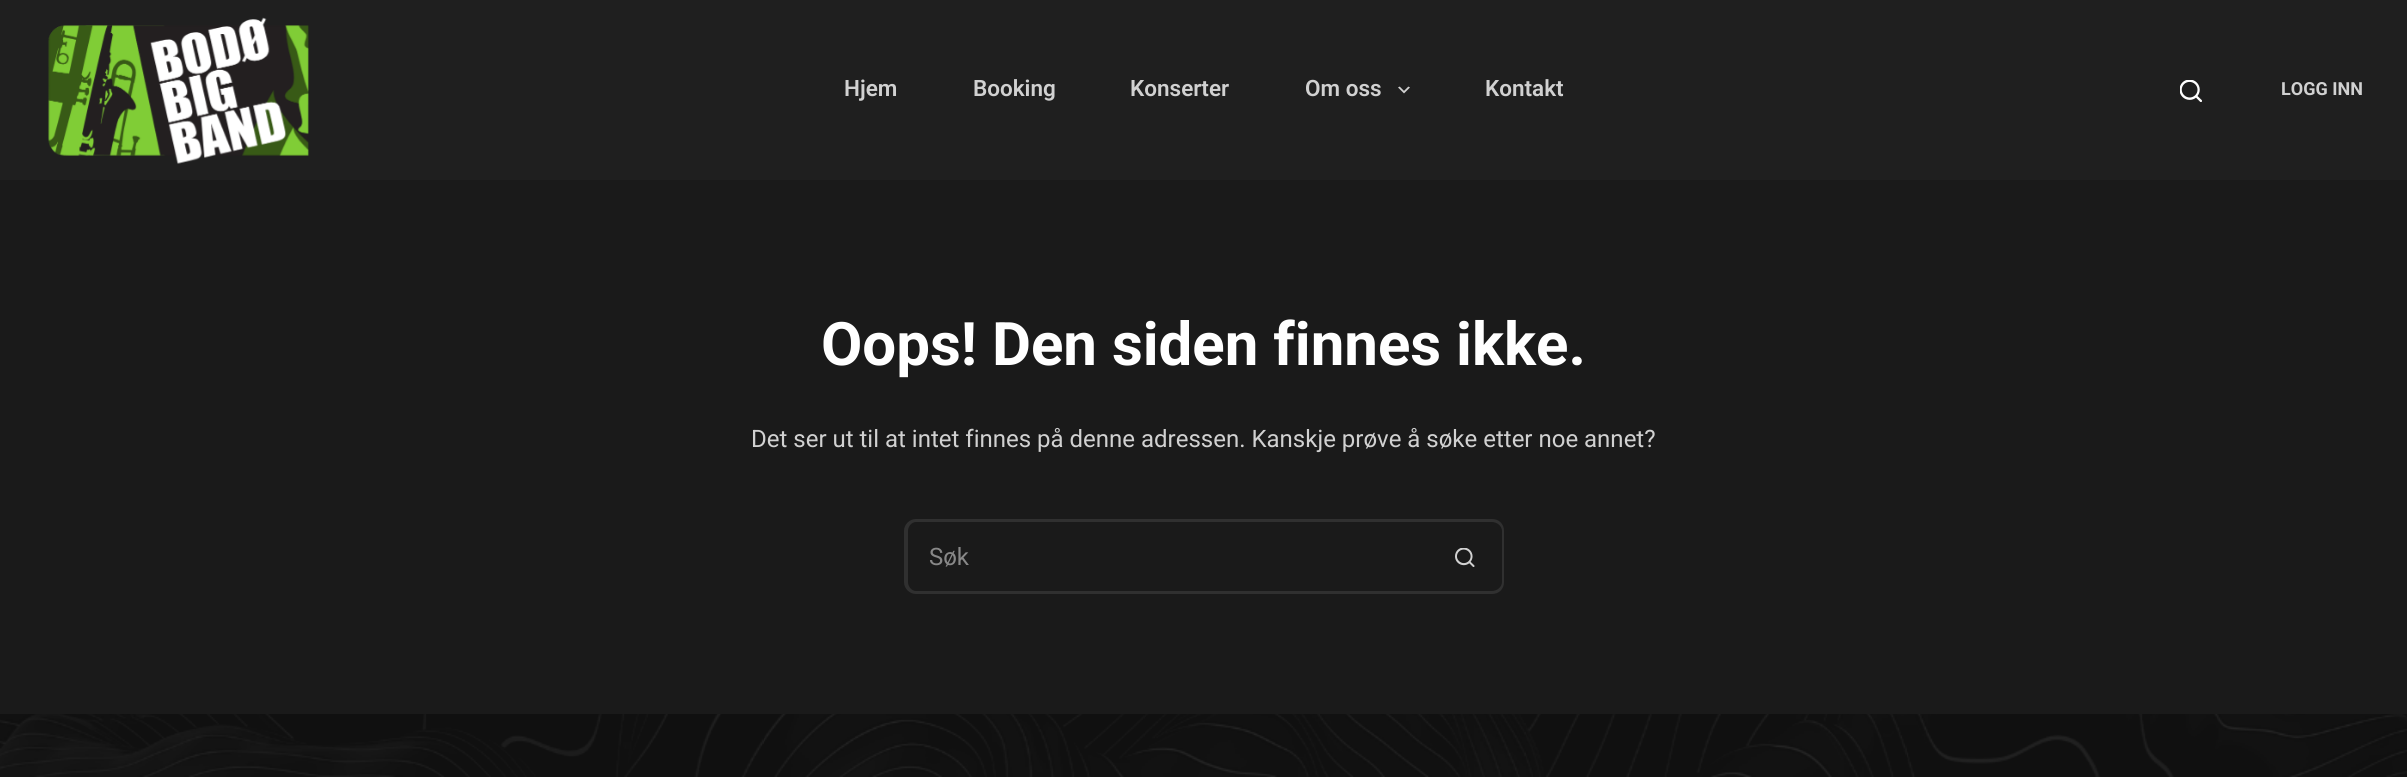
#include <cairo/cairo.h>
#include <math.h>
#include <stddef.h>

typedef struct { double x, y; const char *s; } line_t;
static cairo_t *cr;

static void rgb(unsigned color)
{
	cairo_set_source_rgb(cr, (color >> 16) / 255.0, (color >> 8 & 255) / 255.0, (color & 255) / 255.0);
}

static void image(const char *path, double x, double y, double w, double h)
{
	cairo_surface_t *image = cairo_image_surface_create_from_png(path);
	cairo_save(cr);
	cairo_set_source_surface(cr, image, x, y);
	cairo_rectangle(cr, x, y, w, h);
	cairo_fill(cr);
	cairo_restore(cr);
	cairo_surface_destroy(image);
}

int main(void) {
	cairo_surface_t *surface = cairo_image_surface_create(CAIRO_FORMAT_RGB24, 2407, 777);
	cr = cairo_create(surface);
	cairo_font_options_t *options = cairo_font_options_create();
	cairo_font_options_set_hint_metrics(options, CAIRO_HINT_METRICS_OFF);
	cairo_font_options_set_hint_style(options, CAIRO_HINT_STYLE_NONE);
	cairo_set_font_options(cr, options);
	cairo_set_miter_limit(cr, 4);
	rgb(0x121212);
	cairo_paint(cr);
	rgb(0x1f1f1f);
	cairo_rectangle(cr, 0, 0, 2407, 180);
	cairo_fill(cr);
	image("img/1.png", 48, 17, 261, 147);
	image("img/2.png", 1398, 86, 12, 8);
	image("img/3.png", 2180, 80, 22, 22);
	rgb(0x1a1a1a);
	cairo_rectangle(cr, 0, 180, 2407, 534);
	cairo_fill(cr);
	rgb(0x303030);
	cairo_set_fill_rule(cr, CAIRO_FILL_RULE_EVEN_ODD);
	cairo_new_path(cr);
	cairo_move_to(cr, 916, 519);
	cairo_line_to(cr, 1430, 519);
	cairo_line_to(cr, 1430, 594);
	cairo_line_to(cr, 916, 594);
	cairo_curve_to(cr, 910, 594, 904, 589, 904, 582);
	cairo_line_to(cr, 904, 531);
	cairo_curve_to(cr, 904, 524, 910, 519, 916, 519);
	cairo_close_path(cr);
	cairo_move_to(cr, 916, 522);
	cairo_line_to(cr, 1430, 522);
	cairo_line_to(cr, 1430, 591);
	cairo_line_to(cr, 916, 591);
	cairo_curve_to(cr, 912, 591, 908, 587, 908, 582);
	cairo_line_to(cr, 908, 531);
	cairo_curve_to(cr, 908, 526, 912, 522, 916, 522);
	cairo_close_path(cr);
	cairo_fill(cr);
	cairo_new_path(cr);
	cairo_move_to(cr, 1430, 519);
	cairo_line_to(cr, 1492, 519);
	cairo_curve_to(cr, 1499, 519, 1504, 524, 1504, 531);
	cairo_line_to(cr, 1504, 582);
	cairo_curve_to(cr, 1504, 589, 1499, 594, 1492, 594);
	cairo_line_to(cr, 1430, 594);
	cairo_close_path(cr);
	cairo_move_to(cr, 1430, 522);
	cairo_line_to(cr, 1492, 522);
	cairo_curve_to(cr, 1497, 522, 1502, 526, 1502, 531);
	cairo_line_to(cr, 1502, 582);
	cairo_curve_to(cr, 1502, 587, 1497, 591, 1492, 591);
	cairo_line_to(cr, 1430, 591);
	cairo_close_path(cr);
	cairo_fill(cr);
	image("img/4.png", 1455, 548, 20, 19);
	image("img/5.png", 0, 714, 2407, 63);
	cairo_select_font_face(cr, "Roboto SemiBold", CAIRO_FONT_SLANT_NORMAL, CAIRO_FONT_WEIGHT_NORMAL);
	cairo_set_font_size(cr, 22.5);
	rgb(0xd1d1d1);
	{
		static const line_t items[] = {
			{844, 96, "Hjem"},
			{973, 96, "Booking"},
			{1130, 96, "Konserter"},
			{1305, 96, "Om oss"},
			{1485, 96, "Kontakt"},
		};
		for (size_t i = 0; i < sizeof items / sizeof *items; i++) {
			cairo_move_to(cr, items[i].x, items[i].y);
			cairo_show_text(cr, items[i].s);
		}
	}
	cairo_select_font_face(cr, "Roboto", CAIRO_FONT_SLANT_NORMAL, CAIRO_FONT_WEIGHT_BOLD);
	cairo_set_font_size(cr, 18);
	cairo_move_to(cr, 2281, 95);
	cairo_show_text(cr, "LOGG INN");
	cairo_set_font_size(cr, 60);
	rgb(0xffffff);
	cairo_move_to(cr, 821, 365);
	cairo_show_text(cr, "Oops! Den siden finnes ikke.");
	cairo_select_font_face(cr, "Roboto", CAIRO_FONT_SLANT_NORMAL, CAIRO_FONT_WEIGHT_NORMAL);
	cairo_set_font_size(cr, 24);
	rgb(0xd1d1d1);
	cairo_move_to(cr, 751, 447);
	cairo_show_text(cr, "Det ser ut til at intet finnes på denne adressen. Kanskje prøve å søke etter noe annet?");
	rgb(0x888888);
	cairo_move_to(cr, 929, 565);
	cairo_show_text(cr, "Søk");
	cairo_surface_write_to_png(surface, "page.png");
	cairo_font_options_destroy(options);
	cairo_destroy(cr);
	cairo_surface_destroy(surface);
	return 0;
}
